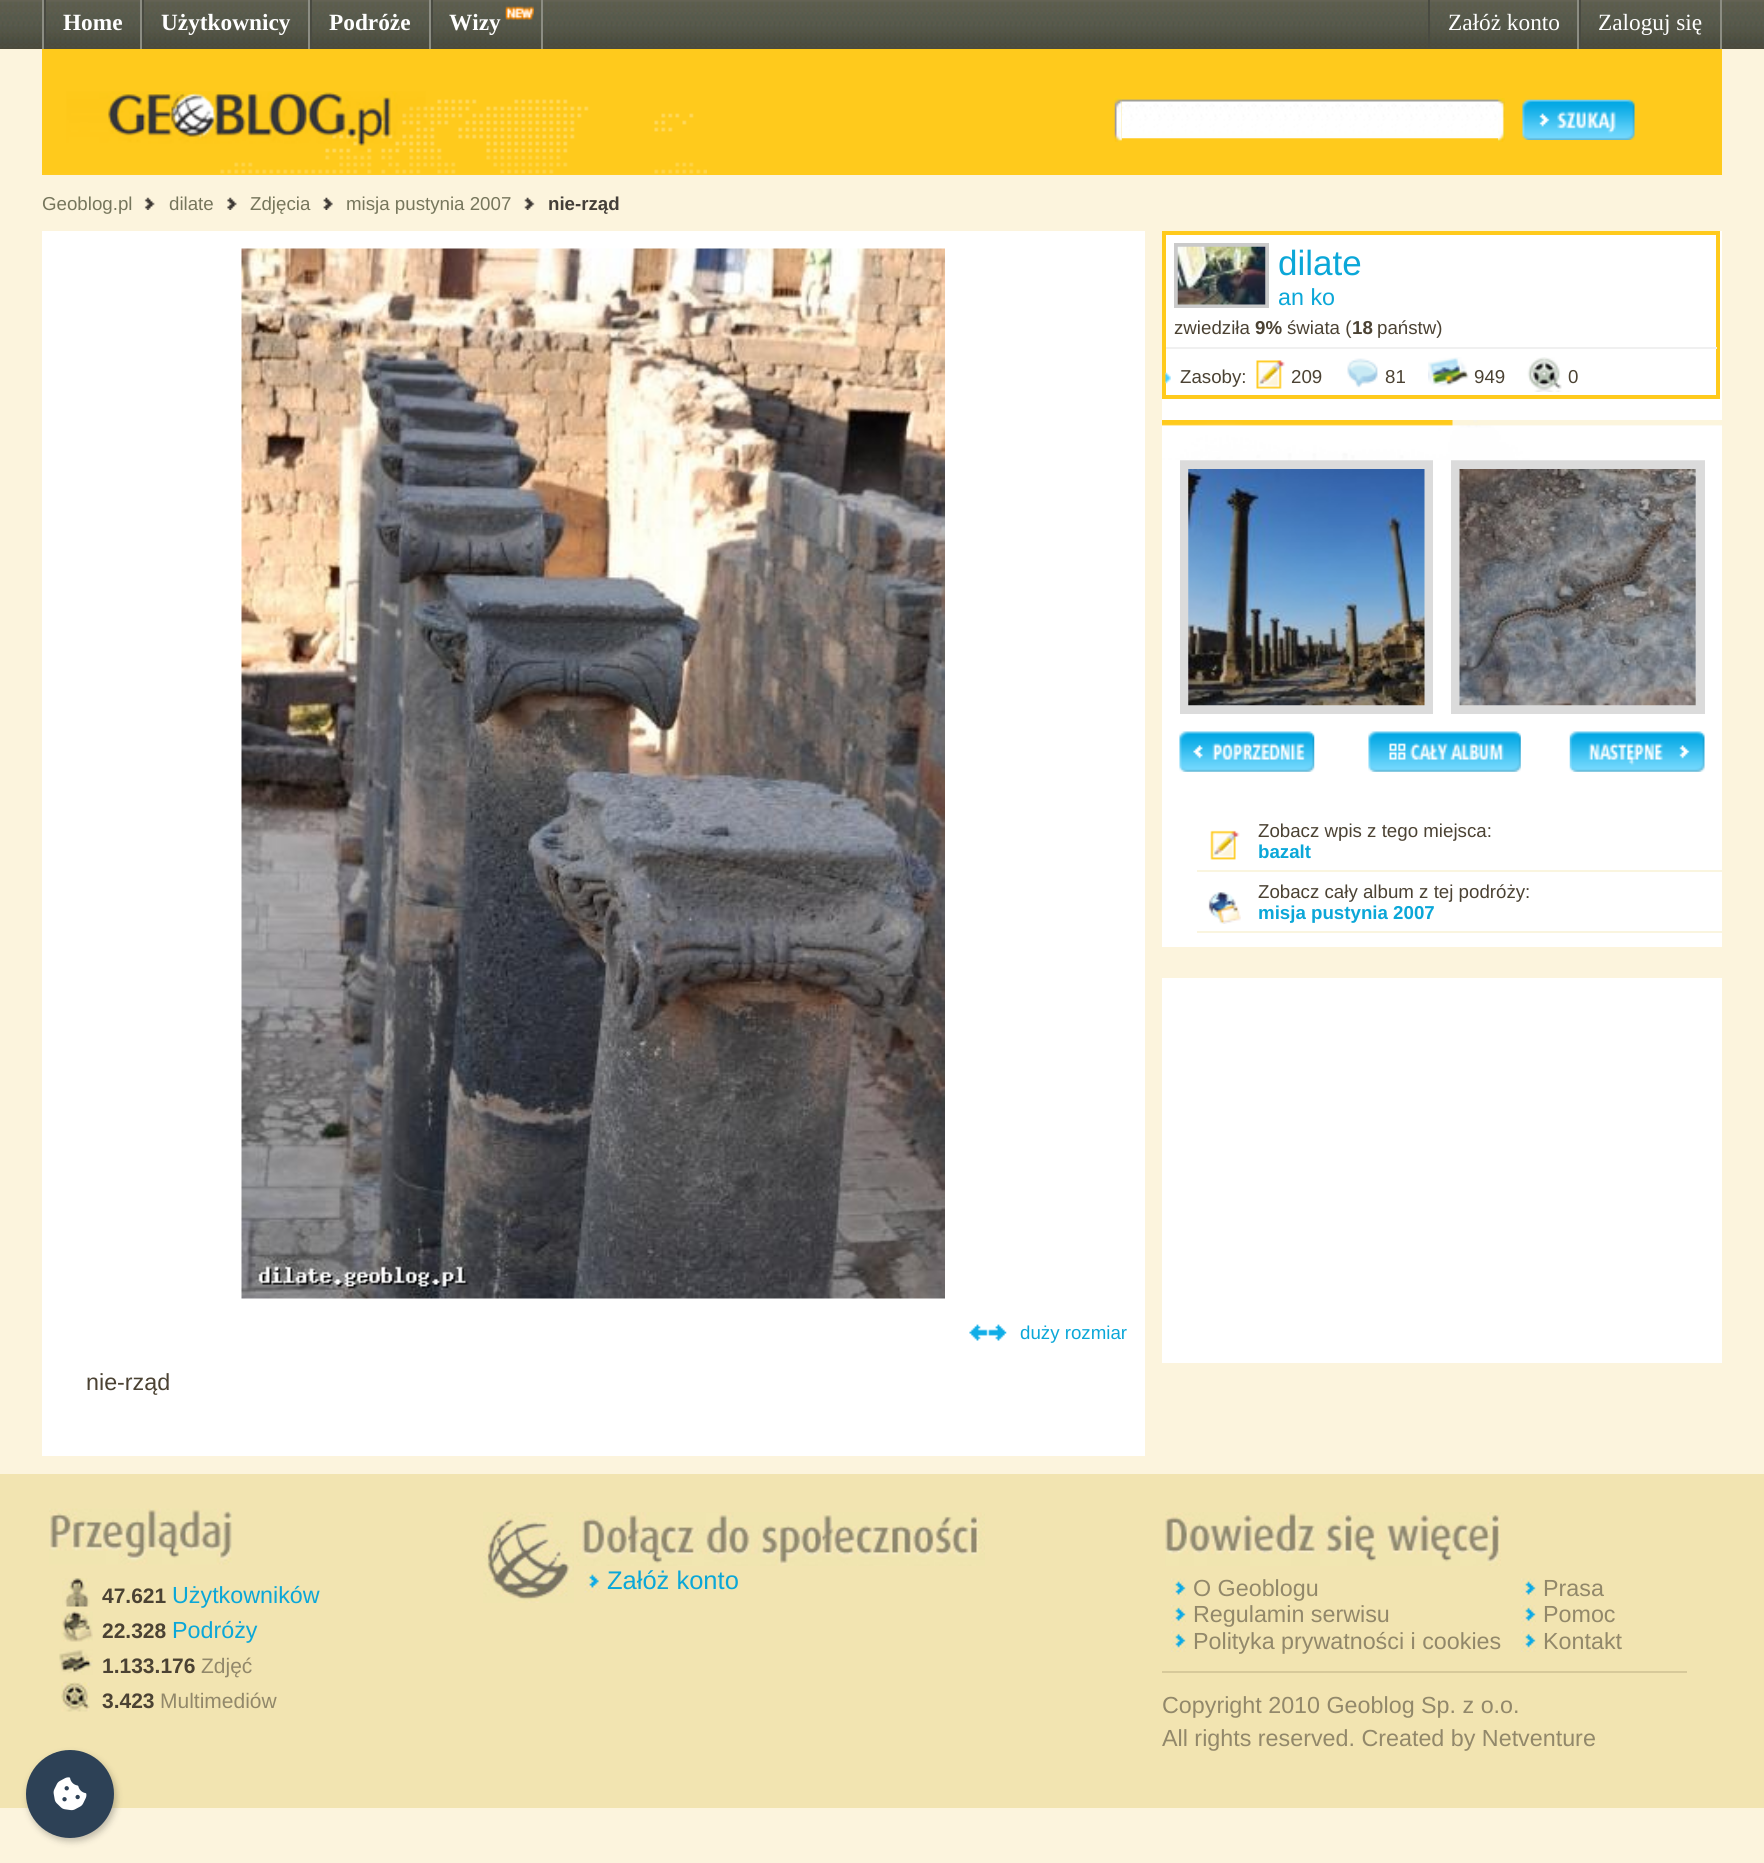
#include <cairo/cairo.h>
#include <math.h>
#include <stddef.h>

typedef struct { double x, y; const char *s; } line_t;
typedef struct { double x, y, w, h; unsigned color; } box_t;
static cairo_t *cr;

static void rgb(unsigned color)
{
	cairo_set_source_rgb(cr, (color >> 16) / 255.0, (color >> 8 & 255) / 255.0, (color & 255) / 255.0);
}

static void rrect(double x, double y, double w, double h, double r)
{
	cairo_new_sub_path(cr);
	cairo_arc(cr, x + w - r, y + h - r, r, 0, M_PI / 2);
	cairo_arc(cr, x + r, y + h - r, r, M_PI / 2, M_PI);
	cairo_arc(cr, x + r, y + r, r, M_PI, 1.5 * M_PI);
	cairo_arc(cr, x + w - r, y + r, r, 1.5 * M_PI, 2 * M_PI);
	cairo_close_path(cr);
}

static void soft_shadow(double x, double y, double w, double h, double r, double blur, double alpha)
{
	cairo_push_group_with_content(cr, CAIRO_CONTENT_ALPHA);
	cairo_set_operator(cr, CAIRO_OPERATOR_SOURCE);
	for (int i = 15; i >= -15 && fmin(w, h) + blur * i / 3 > 0; i -= 2) {
		double e = blur * i / 6;
		cairo_set_source_rgba(cr, 0, 0, 0, alpha * erfc((i - 1) / 8.5) / 2);
		rrect(x - e, y - e, w + 2 * e, h + 2 * e, fmax(0, fmin(r + e + blur * .6, fmin(w, h) / 2 + e)));
		cairo_fill(cr);
	}
	cairo_pattern_t *soft = cairo_pop_group(cr);
	cairo_mask(cr, soft);
	cairo_pattern_destroy(soft);
}

static void image(const char *path, double x, double y, double w, double h)
{
	cairo_surface_t *image = cairo_image_surface_create_from_png(path);
	cairo_save(cr);
	cairo_set_source_surface(cr, image, x, y);
	cairo_rectangle(cr, x, y, w, h);
	cairo_fill(cr);
	cairo_restore(cr);
	cairo_surface_destroy(image);
}

int main(void) {
	cairo_surface_t *surface = cairo_image_surface_create(CAIRO_FORMAT_RGB24, 1764, 1863);
	cr = cairo_create(surface);
	cairo_font_options_t *options = cairo_font_options_create();
	cairo_font_options_set_hint_metrics(options, CAIRO_HINT_METRICS_OFF);
	cairo_font_options_set_hint_style(options, CAIRO_HINT_STYLE_NONE);
	cairo_set_font_options(cr, options);
	cairo_set_miter_limit(cr, 4);
	rgb(0xfcf4dd);
	cairo_paint(cr);
	image("img/1.png", 0, 0, 1764, 49);
	{
		static const box_t items[] = {
			{42, 0, 2, 49, 0x8c8d83},
			{140, 0, 2, 49, 0x8c8d83},
			{44, 0, 2, 49, 0x494a41},
			{308, 0, 2, 49, 0x8c8d83},
			{142, 0, 2, 49, 0x494a41},
			{429, 0, 2, 49, 0x8c8d83},
			{310, 0, 2, 49, 0x494a41},
			{541, 0, 2, 49, 0x8c8d83},
			{431, 0, 2, 49, 0x494a41},
		};
		for (size_t i = 0; i < sizeof items / sizeof *items; i++) {
			rgb(items[i].color);
			cairo_rectangle(cr, items[i].x, items[i].y, items[i].w, items[i].h);
			cairo_fill(cr);
		}
	}
	image("img/2.png", 505, 6, 29, 14);
	{
		static const box_t items[] = {
			{1577, 0, 2, 49, 0x8c8d83},
			{1428, 0, 2, 49, 0x494a41},
			{1720, 0, 2, 49, 0x8c8d83},
			{1579, 0, 2, 49, 0x494a41},
			{42, 49, 1680, 126, 0xffca1c},
		};
		for (size_t i = 0; i < sizeof items / sizeof *items; i++) {
			rgb(items[i].color);
			cairo_rectangle(cr, items[i].x, items[i].y, items[i].w, items[i].h);
			cairo_fill(cr);
		}
	}
	image("img/3.png", 42, 91, 665, 84);
	image("img/4.png", 1114, 98, 8, 44);
	image("img/5.png", 1121, 98, 377, 41);
	image("img/6.png", 1498, 98, 7, 44);
	image("img/7.png", 1522, 99, 113, 41);
	image("img/8.png", 144, 197, 11, 13);
	image("img/9.png", 227, 197, 10, 13);
	image("img/10.png", 323, 197, 10, 13);
	image("img/11.png", 524, 197, 11, 13);
	rgb(0xffffff);
	cairo_rectangle(cr, 1162, 231, 560, 716);
	cairo_fill(cr);
	cairo_rectangle(cr, 1164, 233, 554, 164);
	rgb(0xffca1c);
	cairo_set_line_width(cr, 4);
	cairo_stroke(cr);
	rgb(0xf0f0f0);
	cairo_rectangle(cr, 1166, 347, 551, 2);
	cairo_fill(cr);
	cairo_rectangle(cr, 1176, 245, 91, 61);
	rgb(0xcacaca);
	cairo_stroke(cr);
	image("img/12.png", 1177, 246, 89, 59);
	image("img/13.png", 1165, 372, 6, 12);
	image("img/14.png", 1256, 360, 29, 29);
	image("img/15.png", 1347, 358, 31, 30);
	image("img/16.png", 1428, 357, 41, 30);
	image("img/17.png", 1527, 357, 35, 35);
	cairo_rectangle(cr, 1184.5, 464.5, 244, 245);
	rgb(0xdbdbdb);
	cairo_set_line_width(cr, 9);
	cairo_stroke(cr);
	cairo_rectangle(cr, 1455.5, 464.5, 245, 245);
	cairo_stroke(cr);
	image("img/18.png", 1162, 420, 560, 41);
	image("img/19.png", 1188, 469, 237, 237);
	image("img/20.png", 1459, 469, 237, 237);
	image("img/21.png", 1179, 731, 136, 41);
	image("img/22.png", 1368, 731, 153, 41);
	image("img/23.png", 1569, 731, 136, 41);
	rgb(0xfaf5df);
	cairo_rectangle(cr, 1197, 870, 525, 2);
	cairo_fill(cr);
	image("img/24.png", 1210, 830, 30, 30);
	cairo_rectangle(cr, 1197, 931, 525, 2);
	cairo_fill(cr);
	image("img/25.png", 1208, 892, 33, 32);
	rgb(0xffffff);
	cairo_rectangle(cr, 1162, 978, 560, 385);
	cairo_fill(cr);
	cairo_rectangle(cr, 42, 231, 1103, 1225);
	cairo_fill(cr);
	image("img/26.png", 241, 248, 704, 1051);
	image("img/27.png", 969, 1324, 38, 17);
	rgb(0xf2e4b1);
	cairo_rectangle(cr, 0, 1474, 1764, 334);
	cairo_fill(cr);
	image("img/28.png", 483, 1512, 91, 91);
	image("img/29.png", 576, 1512, 409, 54);
	image("img/30.png", 584, 1571, 16, 22);
	image("img/31.png", 49, 1508, 183, 57);
	image("img/32.png", 62, 1578, 28, 29);
	image("img/33.png", 61, 1611, 32, 31);
	image("img/34.png", 59, 1649, 34, 26);
	image("img/35.png", 61, 1682, 29, 30);
	image("img/36.png", 1165, 1512, 336, 54);
	rgb(0xd7c99a);
	cairo_rectangle(cr, 1162, 1671, 525, 2);
	cairo_fill(cr);
	image("img/37.png", 1171, 1578, 15, 22);
	image("img/38.png", 1171, 1605, 15, 21);
	image("img/39.png", 1171, 1631, 15, 21);
	image("img/37.png", 1521, 1578, 15, 22);
	image("img/38.png", 1521, 1605, 15, 21);
	image("img/39.png", 1521, 1631, 15, 21);
	rgb(0x000000);
	soft_shadow(28, 1754, 88, 87, 43.5, 3.5, 0.25);
	rgb(0x2d4156);
	cairo_arc(cr, 70, 1794, 44, 0, 2 * M_PI);
	cairo_fill(cr);
	image("img/40.png", 53, 1777, 34, 34);
	cairo_select_font_face(cr, "Liberation Serif", CAIRO_FONT_SLANT_NORMAL, CAIRO_FONT_WEIGHT_BOLD);
	cairo_set_font_size(cr, 23.3);
	rgb(0xffffff);
	{
		static const line_t items[] = {
			{63, 30, "Home"},
			{161, 30, "Użytkownicy"},
			{329, 30, "Podróże"},
			{449, 30, "Wizy"},
		};
		for (size_t i = 0; i < sizeof items / sizeof *items; i++) {
			cairo_move_to(cr, items[i].x, items[i].y);
			cairo_show_text(cr, items[i].s);
		}
	}
	cairo_select_font_face(cr, "Liberation Serif", CAIRO_FONT_SLANT_NORMAL, CAIRO_FONT_WEIGHT_NORMAL);
	cairo_move_to(cr, 1448, 30);
	cairo_show_text(cr, "Załóż konto");
	cairo_move_to(cr, 1598, 30);
	cairo_show_text(cr, "Zaloguj się");
	cairo_select_font_face(cr, "Liberation Sans", CAIRO_FONT_SLANT_NORMAL, CAIRO_FONT_WEIGHT_NORMAL);
	cairo_set_font_size(cr, 18.7);
	rgb(0x76765c);
	{
		static const line_t items[] = {
			{42, 210, "Geoblog.pl"},
			{169, 210, "dilate"},
			{250, 210, "Zdjęcia"},
			{346, 210, "misja pustynia 2007"},
		};
		for (size_t i = 0; i < sizeof items / sizeof *items; i++) {
			cairo_move_to(cr, items[i].x, items[i].y);
			cairo_show_text(cr, items[i].s);
		}
	}
	cairo_select_font_face(cr, "Liberation Sans", CAIRO_FONT_SLANT_NORMAL, CAIRO_FONT_WEIGHT_BOLD);
	rgb(0x443f39);
	cairo_move_to(cr, 548, 210);
	cairo_show_text(cr, "nie-rząd");
	cairo_select_font_face(cr, "Liberation Sans", CAIRO_FONT_SLANT_NORMAL, CAIRO_FONT_WEIGHT_NORMAL);
	cairo_set_font_size(cr, 35);
	rgb(0x0ba7d8);
	cairo_move_to(cr, 1278, 275);
	cairo_show_text(cr, "dilate");
	cairo_set_font_size(cr, 23.3);
	cairo_move_to(cr, 1278, 305);
	cairo_show_text(cr, "an ko");
	cairo_set_font_size(cr, 18.7);
	rgb(0x4b4233);
	cairo_move_to(cr, 1174, 334);
	cairo_show_text(cr, "zwiedziła");
	cairo_select_font_face(cr, "Liberation Sans", CAIRO_FONT_SLANT_NORMAL, CAIRO_FONT_WEIGHT_BOLD);
	cairo_move_to(cr, 1255, 334);
	cairo_show_text(cr, "9%");
	cairo_select_font_face(cr, "Liberation Sans", CAIRO_FONT_SLANT_NORMAL, CAIRO_FONT_WEIGHT_NORMAL);
	cairo_move_to(cr, 1287, 334);
	cairo_show_text(cr, "świata (");
	cairo_select_font_face(cr, "Liberation Sans", CAIRO_FONT_SLANT_NORMAL, CAIRO_FONT_WEIGHT_BOLD);
	cairo_move_to(cr, 1352, 334);
	cairo_show_text(cr, "18");
	cairo_select_font_face(cr, "Liberation Sans", CAIRO_FONT_SLANT_NORMAL, CAIRO_FONT_WEIGHT_NORMAL);
	{
		static const line_t items[] = {
			{1377, 334, "państw)"},
			{1180, 383, "Zasoby:"},
			{1291, 383, "209"},
			{1385, 383, "81"},
			{1474, 383, "949"},
			{1568, 383, "0"},
			{1258, 837, "Zobacz wpis z tego miejsca:"},
		};
		for (size_t i = 0; i < sizeof items / sizeof *items; i++) {
			cairo_move_to(cr, items[i].x, items[i].y);
			cairo_show_text(cr, items[i].s);
		}
	}
	cairo_select_font_face(cr, "Liberation Sans", CAIRO_FONT_SLANT_NORMAL, CAIRO_FONT_WEIGHT_BOLD);
	rgb(0x0ba7d8);
	cairo_move_to(cr, 1258, 858);
	cairo_show_text(cr, "bazalt");
	cairo_select_font_face(cr, "Liberation Sans", CAIRO_FONT_SLANT_NORMAL, CAIRO_FONT_WEIGHT_NORMAL);
	rgb(0x4b4233);
	cairo_move_to(cr, 1258, 898);
	cairo_show_text(cr, "Zobacz cały album z tej podróży:");
	cairo_select_font_face(cr, "Liberation Sans", CAIRO_FONT_SLANT_NORMAL, CAIRO_FONT_WEIGHT_BOLD);
	rgb(0x0ba7d8);
	cairo_move_to(cr, 1258, 919);
	cairo_show_text(cr, "misja pustynia 2007");
	cairo_select_font_face(cr, "Liberation Sans", CAIRO_FONT_SLANT_NORMAL, CAIRO_FONT_WEIGHT_NORMAL);
	cairo_move_to(cr, 1020, 1339);
	cairo_show_text(cr, "duży rozmiar");
	cairo_set_font_size(cr, 23.3);
	rgb(0x4b4233);
	cairo_move_to(cr, 86, 1390);
	cairo_show_text(cr, "nie-rząd");
	cairo_set_font_size(cr, 25.5);
	rgb(0x0ba7d8);
	cairo_move_to(cr, 607, 1589);
	cairo_show_text(cr, "Załóż konto");
	cairo_select_font_face(cr, "Liberation Sans", CAIRO_FONT_SLANT_NORMAL, CAIRO_FONT_WEIGHT_BOLD);
	cairo_set_font_size(cr, 21);
	rgb(0x4b4233);
	cairo_move_to(cr, 102, 1603);
	cairo_show_text(cr, "47.621");
	cairo_select_font_face(cr, "Liberation Sans", CAIRO_FONT_SLANT_NORMAL, CAIRO_FONT_WEIGHT_NORMAL);
	cairo_set_font_size(cr, 23.3);
	rgb(0x0ba7d8);
	cairo_move_to(cr, 172, 1603);
	cairo_show_text(cr, "Użytkowników");
	cairo_select_font_face(cr, "Liberation Sans", CAIRO_FONT_SLANT_NORMAL, CAIRO_FONT_WEIGHT_BOLD);
	cairo_set_font_size(cr, 21);
	rgb(0x4b4233);
	cairo_move_to(cr, 102, 1638);
	cairo_show_text(cr, "22.328");
	cairo_select_font_face(cr, "Liberation Sans", CAIRO_FONT_SLANT_NORMAL, CAIRO_FONT_WEIGHT_NORMAL);
	cairo_set_font_size(cr, 23.3);
	rgb(0x0ba7d8);
	cairo_move_to(cr, 172, 1638);
	cairo_show_text(cr, "Podróży");
	cairo_select_font_face(cr, "Liberation Sans", CAIRO_FONT_SLANT_NORMAL, CAIRO_FONT_WEIGHT_BOLD);
	cairo_set_font_size(cr, 21);
	rgb(0x4b4233);
	cairo_move_to(cr, 102, 1673);
	cairo_show_text(cr, "1.133.176");
	cairo_select_font_face(cr, "Liberation Sans", CAIRO_FONT_SLANT_NORMAL, CAIRO_FONT_WEIGHT_NORMAL);
	rgb(0x92886a);
	cairo_move_to(cr, 201, 1673);
	cairo_show_text(cr, "Zdjęć");
	cairo_select_font_face(cr, "Liberation Sans", CAIRO_FONT_SLANT_NORMAL, CAIRO_FONT_WEIGHT_BOLD);
	rgb(0x4b4233);
	cairo_move_to(cr, 102, 1708);
	cairo_show_text(cr, "3.423");
	cairo_select_font_face(cr, "Liberation Sans", CAIRO_FONT_SLANT_NORMAL, CAIRO_FONT_WEIGHT_NORMAL);
	rgb(0x92886a);
	cairo_move_to(cr, 160, 1708);
	cairo_show_text(cr, "Multimediów");
	cairo_set_font_size(cr, 23.3);
	{
		static const line_t items[] = {
			{1193, 1596, "O Geoblogu"},
			{1193, 1622, "Regulamin serwisu"},
			{1193, 1649, "Polityka prywatności i cookies"},
			{1543, 1596, "Prasa"},
			{1543, 1622, "Pomoc"},
			{1543, 1649, "Kontakt"},
			{1162, 1713, "Copyright 2010 Geoblog Sp. z o.o."},
			{1162, 1746, "All rights reserved. Created by Netventure"},
		};
		for (size_t i = 0; i < sizeof items / sizeof *items; i++) {
			cairo_move_to(cr, items[i].x, items[i].y);
			cairo_show_text(cr, items[i].s);
		}
	}
	cairo_surface_write_to_png(surface, "page.png");
	cairo_font_options_destroy(options);
	cairo_destroy(cr);
	cairo_surface_destroy(surface);
	return 0;
}
